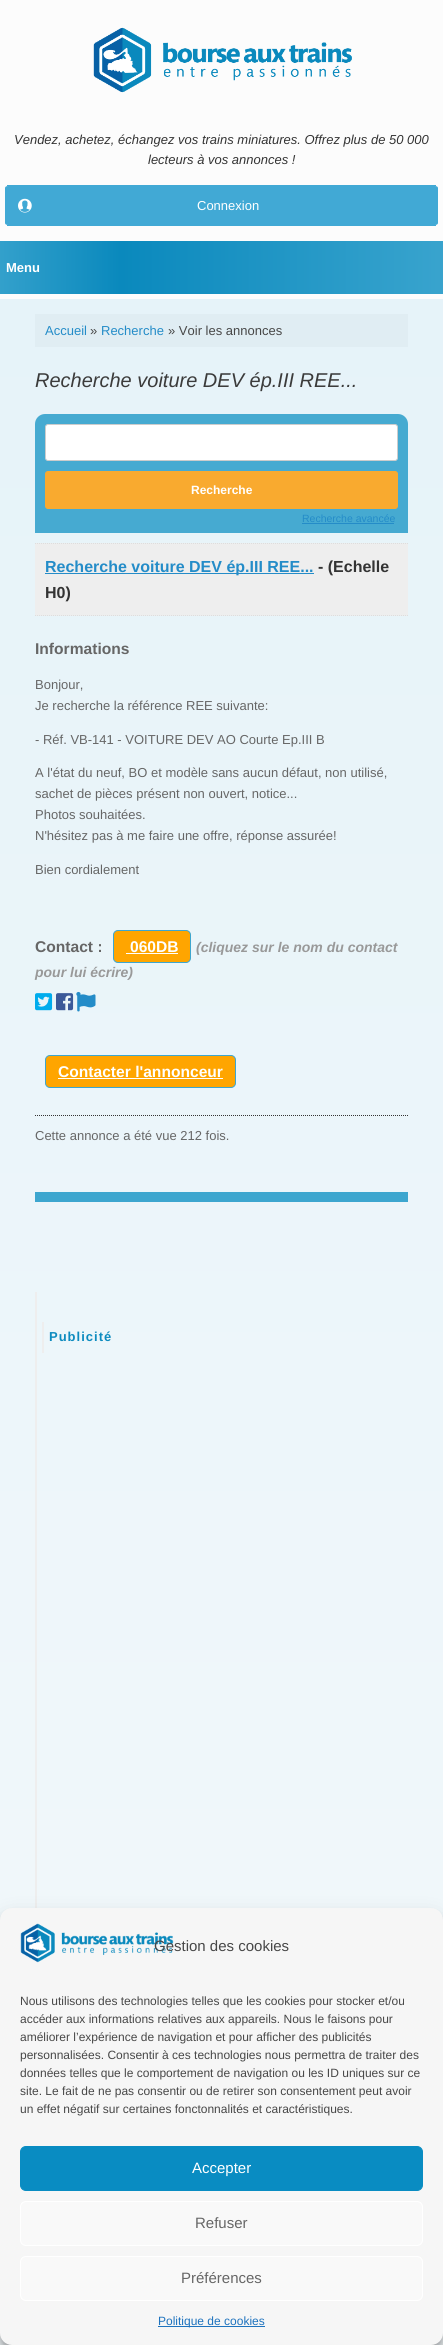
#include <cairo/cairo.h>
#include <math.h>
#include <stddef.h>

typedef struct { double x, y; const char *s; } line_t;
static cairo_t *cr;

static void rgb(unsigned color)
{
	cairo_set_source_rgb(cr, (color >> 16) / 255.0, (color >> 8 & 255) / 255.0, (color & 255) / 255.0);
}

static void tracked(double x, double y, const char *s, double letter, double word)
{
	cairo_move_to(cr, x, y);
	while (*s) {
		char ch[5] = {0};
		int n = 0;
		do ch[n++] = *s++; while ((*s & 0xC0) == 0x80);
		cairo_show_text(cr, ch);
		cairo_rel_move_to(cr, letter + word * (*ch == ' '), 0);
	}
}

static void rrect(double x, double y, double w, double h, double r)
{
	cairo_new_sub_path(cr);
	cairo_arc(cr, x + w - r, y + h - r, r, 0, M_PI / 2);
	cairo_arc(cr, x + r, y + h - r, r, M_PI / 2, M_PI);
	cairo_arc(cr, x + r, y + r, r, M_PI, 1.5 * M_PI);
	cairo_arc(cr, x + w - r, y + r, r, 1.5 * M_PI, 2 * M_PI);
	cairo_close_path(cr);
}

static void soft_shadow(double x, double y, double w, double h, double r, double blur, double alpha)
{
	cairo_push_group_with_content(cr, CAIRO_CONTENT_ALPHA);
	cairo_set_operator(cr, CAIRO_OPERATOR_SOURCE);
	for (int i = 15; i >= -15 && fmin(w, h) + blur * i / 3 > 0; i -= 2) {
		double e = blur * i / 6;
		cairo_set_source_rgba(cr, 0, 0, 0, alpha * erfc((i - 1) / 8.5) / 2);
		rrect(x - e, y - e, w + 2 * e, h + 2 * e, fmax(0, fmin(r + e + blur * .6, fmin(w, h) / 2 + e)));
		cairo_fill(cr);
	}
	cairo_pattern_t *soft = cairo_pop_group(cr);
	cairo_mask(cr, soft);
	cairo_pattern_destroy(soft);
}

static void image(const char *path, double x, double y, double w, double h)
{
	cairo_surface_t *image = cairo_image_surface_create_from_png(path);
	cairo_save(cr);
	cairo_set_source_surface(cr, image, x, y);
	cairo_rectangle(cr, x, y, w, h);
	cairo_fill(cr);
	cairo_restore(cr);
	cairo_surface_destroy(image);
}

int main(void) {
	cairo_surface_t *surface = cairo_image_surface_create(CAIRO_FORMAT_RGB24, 443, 2345);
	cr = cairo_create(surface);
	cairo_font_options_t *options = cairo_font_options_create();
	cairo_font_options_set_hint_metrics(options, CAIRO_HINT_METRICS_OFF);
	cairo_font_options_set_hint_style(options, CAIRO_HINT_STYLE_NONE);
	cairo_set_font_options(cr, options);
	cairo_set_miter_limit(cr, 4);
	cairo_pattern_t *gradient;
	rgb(0xfcfcfc);
	cairo_paint(cr);
	image("img/1.png", 93, 27, 259, 66);
	rgb(0x41a9d5);
	cairo_new_path(cr);
	cairo_move_to(cr, 8, 186);
	cairo_line_to(cr, 435, 186);
	cairo_curve_to(cr, 437, 186, 438, 187, 438, 188);
	cairo_line_to(cr, 438, 223);
	cairo_curve_to(cr, 438, 224, 437, 225, 435, 225);
	cairo_line_to(cr, 8, 225);
	cairo_curve_to(cr, 6, 225, 5, 224, 5, 223);
	cairo_line_to(cr, 5, 188);
	cairo_curve_to(cr, 5, 187, 6, 186, 8, 186);
	cairo_close_path(cr);
	cairo_fill(cr);
	cairo_rectangle(cr, 7, 185, 429, 1);
	cairo_fill(cr);
	cairo_rectangle(cr, 7, 225, 429, 1);
	cairo_fill(cr);
	image("img/2.png", 18, 198, 14, 15);
	gradient = cairo_pattern_create_linear(-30, 268, 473, 268);
	cairo_pattern_add_color_stop_rgba(gradient, 0, 0.239, 0.651, 0.812, 1);
	cairo_pattern_add_color_stop_rgba(gradient, 0.3, 0.039, 0.537, 0.741, 1);
	cairo_pattern_add_color_stop_rgba(gradient, 1, 0.239, 0.651, 0.812, 1);
	cairo_set_source(cr, gradient);
	cairo_pattern_destroy(gradient);
	cairo_rectangle(cr, 0, 241, 443, 53);
	cairo_fill(cr);
	gradient = cairo_pattern_create_linear(222, 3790, 222, 299);
	cairo_pattern_add_color_stop_rgba(gradient, 0, 0.988, 0.988, 0.988, 1);
	cairo_pattern_add_color_stop_rgba(gradient, 1, 0.902, 0.953, 0.976, 1);
	cairo_set_source(cr, gradient);
	cairo_pattern_destroy(gradient);
	cairo_rectangle(cr, 0, 299, 443, 2046);
	cairo_fill(cr);
	rgb(0xe0edf3);
	cairo_rectangle(cr, 35, 314, 373, 33);
	cairo_fill(cr);
	rgb(0x3da6cf);
	cairo_rectangle(cr, 35, 1192, 373, 10);
	cairo_fill(cr);
	rgb(0x46aad1);
	cairo_new_path(cr);
	cairo_move_to(cr, 45, 414);
	cairo_line_to(cr, 398, 414);
	cairo_curve_to(cr, 403.5, 414, 408, 418.5, 408, 424);
	cairo_line_to(cr, 408, 533);
	cairo_line_to(cr, 35, 533);
	cairo_line_to(cr, 35, 424);
	cairo_curve_to(cr, 35, 418.5, 39.5, 414, 45, 414);
	cairo_close_path(cr);
	cairo_fill(cr);
	rgb(0xffffff);
	rrect(45.5, 424.5, 352, 36, 2.5);
	cairo_fill_preserve(cr);
	rgb(0xcccccc);
	cairo_set_line_width(cr, 1);
	cairo_stroke(cr);
	rgb(0xf9aa2f);
	rrect(45.5, 471.5, 352, 37, 2.5);
	cairo_fill_preserve(cr);
	cairo_stroke(cr);
	rgb(0x248cc8);
	cairo_rectangle(cr, 302, 523, 92, 1);
	cairo_fill(cr);
	rgb(0xeeeeee);
	cairo_rectangle(cr, 35, 543, 373, 73);
	cairo_fill(cr);
	cairo_new_path(cr);
	cairo_move_to(cr, 35, 543.5);
	cairo_line_to(cr, 408, 543.5);
	rgb(0xdddddd);
	cairo_set_dash(cr, (double[]){1, 1}, 2, 0);
	cairo_stroke(cr);
	cairo_new_path(cr);
	cairo_move_to(cr, 35, 615.5);
	cairo_line_to(cr, 408, 615.5);
	cairo_stroke(cr);
	rgb(0x248cc8);
	cairo_rectangle(cr, 45, 573, 269, 1);
	cairo_fill(cr);
	rgb(0xffa500);
	rrect(113.5, 930.5, 77, 32, 4.5);
	cairo_fill_preserve(cr);
	rgb(0x3da6cf);
	cairo_set_dash(cr, NULL, 0, 0);
	cairo_stroke(cr);
	rgb(0xffffff);
	cairo_rectangle(cr, 126, 953, 52, 1);
	cairo_fill(cr);
	image("img/3.png", 35, 993, 18, 18);
	image("img/4.png", 56, 993, 18, 18);
	image("img/5.png", 76, 991, 20, 21);
	rgb(0xffa500);
	rrect(45.5, 1055.5, 190, 32, 4.5);
	cairo_fill_preserve(cr);
	rgb(0x3da6cf);
	cairo_stroke(cr);
	rgb(0xffffff);
	cairo_rectangle(cr, 58, 1078, 165, 1);
	cairo_fill(cr);
	cairo_new_path(cr);
	cairo_move_to(cr, 35, 1115.5);
	cairo_line_to(cr, 408, 1115.5);
	rgb(0x333333);
	cairo_set_dash(cr, (double[]){1, 1}, 2, 0);
	cairo_stroke(cr);
	rgb(0xeeeeee);
	cairo_rectangle(cr, 35, 1292, 2, 616);
	cairo_fill(cr);
	cairo_rectangle(cr, 42, 1322, 2, 31);
	cairo_fill(cr);
	rgb(0x000000);
	soft_shadow(0, 1914, 443, 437, 12, 3, 0.23);
	soft_shadow(0, 1918, 443, 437, 12, 10, 0.19);
	rgb(0xf6f6f6);
	rrect(0, 1908, 443, 437, 12);
	cairo_fill(cr);
	image("img/6.png", 20, 1923, 154, 40);
	rgb(0x098cc2);
	rrect(20.5, 2146.5, 402, 44, 5.5);
	cairo_fill_preserve(cr);
	cairo_set_dash(cr, NULL, 0, 0);
	cairo_stroke(cr);
	rgb(0xf9f9f9);
	rrect(20.5, 2201.5, 402, 44, 5.5);
	cairo_fill_preserve(cr);
	rgb(0xffffff);
	cairo_stroke(cr);
	rgb(0xf9f9f9);
	rrect(20.5, 2256.5, 402, 44, 5.5);
	cairo_fill_preserve(cr);
	rgb(0xffffff);
	cairo_stroke(cr);
	rgb(0x1e73be);
	cairo_rectangle(cr, 158, 2326, 107, 1);
	cairo_fill(cr);
	cairo_select_font_face(cr, "Liberation Sans", CAIRO_FONT_SLANT_ITALIC, CAIRO_FONT_WEIGHT_NORMAL);
	cairo_set_font_size(cr, 13);
	rgb(0x333333);
	cairo_move_to(cr, 14, 144);
	cairo_show_text(cr, "Vendez, achetez, échangez vos trains miniatures. Offrez plus de 50 000");
	cairo_move_to(cr, 148, 164);
	cairo_show_text(cr, "lecteurs à vos annonces !");
	cairo_select_font_face(cr, "Liberation Sans", CAIRO_FONT_SLANT_NORMAL, CAIRO_FONT_WEIGHT_NORMAL);
	rgb(0xffffff);
	cairo_move_to(cr, 197, 210);
	cairo_show_text(cr, "Connexion");
	cairo_select_font_face(cr, "Liberation Sans", CAIRO_FONT_SLANT_NORMAL, CAIRO_FONT_WEIGHT_BOLD);
	cairo_move_to(cr, 6, 272);
	cairo_show_text(cr, "Menu");
	cairo_select_font_face(cr, "Liberation Sans", CAIRO_FONT_SLANT_NORMAL, CAIRO_FONT_WEIGHT_NORMAL);
	rgb(0x248cc8);
	cairo_move_to(cr, 45, 335);
	cairo_show_text(cr, "Accueil");
	rgb(0x474747);
	cairo_move_to(cr, 90, 335);
	cairo_show_text(cr, "»");
	rgb(0x248cc8);
	cairo_move_to(cr, 101, 335);
	cairo_show_text(cr, "Recherche");
	rgb(0x474747);
	cairo_move_to(cr, 168, 335);
	cairo_show_text(cr, "» Voir les annonces");
	cairo_select_font_face(cr, "Liberation Sans", CAIRO_FONT_SLANT_ITALIC, CAIRO_FONT_WEIGHT_NORMAL);
	cairo_set_font_size(cr, 20);
	rgb(0x3b3b3b);
	cairo_move_to(cr, 35, 387);
	cairo_show_text(cr, "Recherche voiture DEV ép.III REE...");
	cairo_select_font_face(cr, "Liberation Sans", CAIRO_FONT_SLANT_NORMAL, CAIRO_FONT_WEIGHT_BOLD);
	cairo_set_font_size(cr, 12);
	rgb(0xffffff);
	cairo_move_to(cr, 191, 494);
	cairo_show_text(cr, "Recherche");
	cairo_select_font_face(cr, "Liberation Sans", CAIRO_FONT_SLANT_NORMAL, CAIRO_FONT_WEIGHT_NORMAL);
	cairo_set_font_size(cr, 10.5);
	rgb(0x248cc8);
	cairo_move_to(cr, 302, 522);
	cairo_show_text(cr, "Recherche avancée");
	cairo_select_font_face(cr, "Liberation Sans", CAIRO_FONT_SLANT_NORMAL, CAIRO_FONT_WEIGHT_BOLD);
	cairo_set_font_size(cr, 16);
	cairo_move_to(cr, 45, 572);
	cairo_show_text(cr, "Recherche voiture DEV ép.III REE...");
	rgb(0x333333);
	cairo_move_to(cr, 318, 572);
	cairo_show_text(cr, "- (Echelle");
	cairo_move_to(cr, 45, 598);
	cairo_show_text(cr, "H0)");
	cairo_set_font_size(cr, 15.6);
	rgb(0x666666);
	cairo_move_to(cr, 35, 654);
	cairo_show_text(cr, "Informations");
	cairo_select_font_face(cr, "Liberation Sans", CAIRO_FONT_SLANT_NORMAL, CAIRO_FONT_WEIGHT_NORMAL);
	cairo_set_font_size(cr, 13);
	{
		static const line_t items[] = {
			{35, 689, "Bonjour,"},
			{35, 710, "Je recherche la référence REE suivante:"},
			{35, 744, "- Réf. VB-141 - VOITURE DEV AO Courte Ep.III B"},
			{35, 777, "A l'état du neuf, BO et modèle sans aucun défaut, non utilisé,"},
			{35, 798, "sachet de pièces présent non ouvert, notice..."},
			{35, 819, "Photos souhaitées."},
			{35, 840, "N'hésitez pas à me faire une offre, réponse assurée!"},
			{35, 874, "Bien cordialement"},
		};
		for (size_t i = 0; i < sizeof items / sizeof *items; i++) {
			cairo_move_to(cr, items[i].x, items[i].y);
			cairo_show_text(cr, items[i].s);
		}
	}
	cairo_select_font_face(cr, "Liberation Sans", CAIRO_FONT_SLANT_NORMAL, CAIRO_FONT_WEIGHT_BOLD);
	cairo_set_font_size(cr, 15.6);
	cairo_move_to(cr, 35, 952);
	cairo_show_text(cr, "Contact :");
	rgb(0xffffff);
	cairo_move_to(cr, 130, 952);
	cairo_show_text(cr, "060DB");
	cairo_select_font_face(cr, "Liberation Sans", CAIRO_FONT_SLANT_ITALIC, CAIRO_FONT_WEIGHT_BOLD);
	cairo_set_font_size(cr, 14);
	rgb(0x999999);
	cairo_move_to(cr, 196, 952);
	cairo_show_text(cr, "(cliquez sur le nom du contact");
	cairo_move_to(cr, 35, 977);
	cairo_show_text(cr, "pour lui écrire)");
	cairo_select_font_face(cr, "Liberation Sans", CAIRO_FONT_SLANT_NORMAL, CAIRO_FONT_WEIGHT_BOLD);
	cairo_set_font_size(cr, 15.6);
	rgb(0xffffff);
	cairo_move_to(cr, 58, 1077);
	cairo_show_text(cr, "Contacter l'annonceur");
	cairo_select_font_face(cr, "Liberation Sans", CAIRO_FONT_SLANT_NORMAL, CAIRO_FONT_WEIGHT_NORMAL);
	cairo_set_font_size(cr, 13);
	rgb(0x666666);
	cairo_move_to(cr, 35, 1140);
	cairo_show_text(cr, "Cette annonce a été vue 212 fois.");
	cairo_select_font_face(cr, "Liberation Sans", CAIRO_FONT_SLANT_NORMAL, CAIRO_FONT_WEIGHT_BOLD);
	rgb(0x0d8bbf);
	tracked(49, 1341, "Publicité", 1, 0);
	cairo_select_font_face(cr, "Liberation Sans", CAIRO_FONT_SLANT_NORMAL, CAIRO_FONT_WEIGHT_NORMAL);
	cairo_set_font_size(cr, 15);
	rgb(0x474747);
	cairo_move_to(cr, 154, 1951);
	cairo_show_text(cr, "Gestion des cookies");
	cairo_set_font_size(cr, 12);
	{
		static const line_t items[] = {
			{20, 2005, "Nous utilisons des technologies telles que les cookies pour stocker et/ou"},
			{20, 2023, "accéder aux informations relatives aux appareils. Nous le faisons pour"},
			{20, 2041, "améliorer l’expérience de navigation et pour afficher des publicités"},
			{20, 2059, "personnalisées. Consentir à ces technologies nous permettra de traiter des"},
			{20, 2077, "données telles que le comportement de navigation ou les ID uniques sur ce"},
			{20, 2095, "site. Le fait de ne pas consentir ou de retirer son consentement peut avoir"},
			{20, 2113, "un effet négatif sur certaines fonctonnalités et caractéristiques."},
		};
		for (size_t i = 0; i < sizeof items / sizeof *items; i++) {
			cairo_move_to(cr, items[i].x, items[i].y);
			cairo_show_text(cr, items[i].s);
		}
	}
	cairo_set_font_size(cr, 15);
	rgb(0xffffff);
	cairo_move_to(cr, 192, 2173);
	cairo_show_text(cr, "Accepter");
	rgb(0x666666);
	cairo_move_to(cr, 195, 2228);
	cairo_show_text(cr, "Refuser");
	cairo_move_to(cr, 181, 2283);
	cairo_show_text(cr, "Préférences");
	cairo_set_font_size(cr, 12);
	rgb(0x1e73be);
	cairo_move_to(cr, 158, 2325);
	cairo_show_text(cr, "Politique de cookies");
	cairo_surface_write_to_png(surface, "page.png");
	cairo_font_options_destroy(options);
	cairo_destroy(cr);
	cairo_surface_destroy(surface);
	return 0;
}
